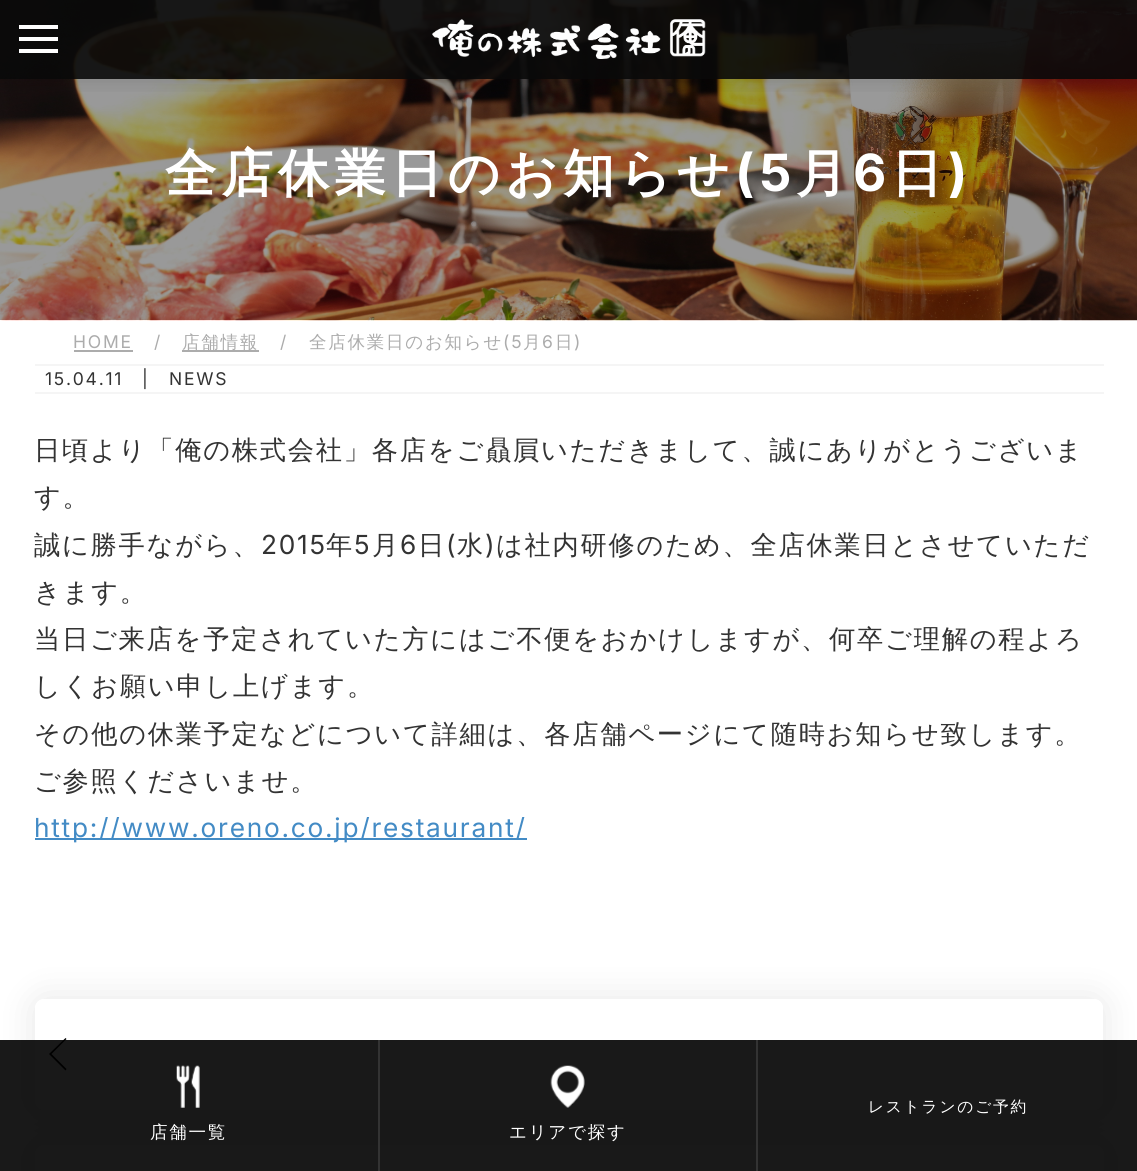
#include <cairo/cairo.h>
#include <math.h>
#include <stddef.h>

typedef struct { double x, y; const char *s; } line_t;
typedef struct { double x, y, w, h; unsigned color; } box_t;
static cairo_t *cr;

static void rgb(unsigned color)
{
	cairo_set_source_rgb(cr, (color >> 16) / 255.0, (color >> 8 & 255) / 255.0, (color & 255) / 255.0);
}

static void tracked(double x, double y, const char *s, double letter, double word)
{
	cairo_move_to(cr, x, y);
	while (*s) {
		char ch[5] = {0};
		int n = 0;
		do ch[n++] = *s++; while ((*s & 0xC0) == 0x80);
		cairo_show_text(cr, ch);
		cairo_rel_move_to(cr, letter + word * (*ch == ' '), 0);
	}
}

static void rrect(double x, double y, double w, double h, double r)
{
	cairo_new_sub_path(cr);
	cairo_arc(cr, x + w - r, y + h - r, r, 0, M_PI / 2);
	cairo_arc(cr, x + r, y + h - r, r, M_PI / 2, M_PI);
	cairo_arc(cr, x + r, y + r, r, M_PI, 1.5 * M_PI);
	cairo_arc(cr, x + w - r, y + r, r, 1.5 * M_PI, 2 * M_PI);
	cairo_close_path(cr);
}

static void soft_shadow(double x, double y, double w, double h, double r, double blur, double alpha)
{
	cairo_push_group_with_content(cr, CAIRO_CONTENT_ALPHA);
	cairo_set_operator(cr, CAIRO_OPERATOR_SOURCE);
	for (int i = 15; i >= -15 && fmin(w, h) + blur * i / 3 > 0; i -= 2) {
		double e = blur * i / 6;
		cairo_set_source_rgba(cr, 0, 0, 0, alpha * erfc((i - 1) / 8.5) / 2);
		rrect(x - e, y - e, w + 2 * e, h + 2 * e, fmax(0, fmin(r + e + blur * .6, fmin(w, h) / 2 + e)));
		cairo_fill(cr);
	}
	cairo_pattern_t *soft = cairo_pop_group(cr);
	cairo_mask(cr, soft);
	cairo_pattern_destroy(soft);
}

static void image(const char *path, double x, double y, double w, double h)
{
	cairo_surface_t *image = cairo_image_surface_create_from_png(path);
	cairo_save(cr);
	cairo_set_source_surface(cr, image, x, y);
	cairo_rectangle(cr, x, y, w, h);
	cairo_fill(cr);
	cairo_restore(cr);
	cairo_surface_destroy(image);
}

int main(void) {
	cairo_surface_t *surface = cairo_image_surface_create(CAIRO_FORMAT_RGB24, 1137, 1171);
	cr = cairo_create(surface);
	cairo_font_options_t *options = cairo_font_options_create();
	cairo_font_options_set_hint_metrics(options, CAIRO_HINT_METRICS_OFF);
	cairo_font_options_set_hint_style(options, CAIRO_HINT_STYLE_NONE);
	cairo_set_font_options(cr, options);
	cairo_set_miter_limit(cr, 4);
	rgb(0xffffff);
	cairo_paint(cr);
	image("img/2.png", 0, 0, 1137, 321);
	cairo_save(cr);
	cairo_rectangle(cr, 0, 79, 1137, 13);
	cairo_clip(cr);
	rgb(0x000000);
	soft_shadow(0, 5, 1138, 79, 0, 9, 0.1);
	cairo_restore(cr);
	cairo_set_source_rgba(cr, 0.039, 0.039, 0.039, 0.9);
	cairo_rectangle(cr, 0, 0, 1137, 79);
	cairo_fill(cr);
	rgb(0xffffff);
	cairo_rectangle(cr, 19, 25, 39, 4);
	cairo_fill(cr);
	cairo_rectangle(cr, 19, 37, 39, 4);
	cairo_fill(cr);
	cairo_rectangle(cr, 19, 49, 39, 4);
	cairo_fill(cr);
	image("img/1.png", 432, 19, 274, 40);
	{
		static const box_t items[] = {
			{74, 350, 59, 2, 0xacacac},
			{182, 350, 77, 2, 0xacacac},
			{35, 364, 1069, 2, 0xf5f5f5},
			{35, 392, 1069, 2, 0xf5f5f5},
			{35, 838, 492, 2, 0x438bc5},
		};
		for (size_t i = 0; i < sizeof items / sizeof *items; i++) {
			rgb(items[i].color);
			cairo_rectangle(cr, items[i].x, items[i].y, items[i].w, items[i].h);
			cairo_fill(cr);
		}
	}
	cairo_save(cr);
	cairo_set_fill_rule(cr, CAIRO_FILL_RULE_EVEN_ODD);
	cairo_new_path(cr);
	cairo_move_to(cr, 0, 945);
	cairo_line_to(cr, 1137, 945);
	cairo_line_to(cr, 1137, 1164);
	cairo_line_to(cr, 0, 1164);
	cairo_close_path(cr);
	cairo_move_to(cr, 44, 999);
	cairo_line_to(cr, 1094, 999);
	cairo_curve_to(cr, 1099, 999, 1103, 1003, 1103, 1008);
	cairo_line_to(cr, 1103, 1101);
	cairo_curve_to(cr, 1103, 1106, 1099, 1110, 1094, 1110);
	cairo_line_to(cr, 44, 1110);
	cairo_curve_to(cr, 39, 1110, 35, 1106, 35, 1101);
	cairo_line_to(cr, 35, 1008);
	cairo_curve_to(cr, 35, 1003, 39, 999, 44, 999);
	cairo_close_path(cr);
	cairo_clip(cr);
	rgb(0x000000);
	soft_shadow(35, 999, 1068, 111, 9, 17.5, 0.1);
	cairo_restore(cr);
	rgb(0x000000);
	cairo_new_path(cr);
	cairo_move_to(cr, 66.5, 1039);
	cairo_line_to(cr, 65.5, 1038);
	cairo_line_to(cr, 49, 1054);
	cairo_line_to(cr, 65.5, 1070.5);
	cairo_line_to(cr, 66.5, 1069);
	cairo_line_to(cr, 51.5, 1054);
	cairo_close_path(cr);
	cairo_fill(cr);
	cairo_save(cr);
	cairo_set_fill_rule(cr, CAIRO_FILL_RULE_EVEN_ODD);
	cairo_new_path(cr);
	cairo_move_to(cr, 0, 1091);
	cairo_line_to(cr, 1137, 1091);
	cairo_line_to(cr, 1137, 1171);
	cairo_line_to(cr, 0, 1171);
	cairo_close_path(cr);
	cairo_move_to(cr, 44, 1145);
	cairo_line_to(cr, 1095, 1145);
	cairo_curve_to(cr, 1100, 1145, 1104, 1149, 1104, 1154);
	cairo_line_to(cr, 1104, 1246);
	cairo_curve_to(cr, 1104, 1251, 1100, 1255, 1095, 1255);
	cairo_line_to(cr, 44, 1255);
	cairo_curve_to(cr, 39, 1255, 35, 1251, 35, 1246);
	cairo_line_to(cr, 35, 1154);
	cairo_curve_to(cr, 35, 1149, 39, 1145, 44, 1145);
	cairo_close_path(cr);
	cairo_clip(cr);
	rgb(0x000000);
	soft_shadow(35, 1145, 1069, 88, 9, 17.5, 0.1);
	cairo_restore(cr);
	cairo_set_source_rgba(cr, 0, 0, 0, 0.9);
	cairo_rectangle(cr, 0, 1040, 1137, 131);
	cairo_fill(cr);
	rgb(0x333333);
	cairo_rectangle(cr, 378, 1040, 2, 131);
	cairo_fill(cr);
	image("img/3.png", 176, 1065, 24, 43);
	cairo_rectangle(cr, 756, 1040, 2, 131);
	cairo_fill(cr);
	image("img/4.png", 550, 1065, 35, 43);
	cairo_select_font_face(cr, "WenQuanYi Zen Hei", CAIRO_FONT_SLANT_NORMAL, CAIRO_FONT_WEIGHT_BOLD);
	cairo_set_font_size(cr, 51.25);
	rgb(0xffffff);
	tracked(165, 191, "全店休業日のお知らせ", 5.25, 0);
	cairo_select_font_face(cr, "Inter", CAIRO_FONT_SLANT_NORMAL, CAIRO_FONT_WEIGHT_BOLD);
	tracked(735, 191, "(5", 5.25, 0);
	cairo_select_font_face(cr, "WenQuanYi Zen Hei", CAIRO_FONT_SLANT_NORMAL, CAIRO_FONT_WEIGHT_BOLD);
	tracked(796, 191, "月", 5.25, 0);
	cairo_select_font_face(cr, "Inter", CAIRO_FONT_SLANT_NORMAL, CAIRO_FONT_WEIGHT_BOLD);
	tracked(853, 191, "6", 5.25, 0);
	cairo_select_font_face(cr, "WenQuanYi Zen Hei", CAIRO_FONT_SLANT_NORMAL, CAIRO_FONT_WEIGHT_BOLD);
	tracked(891, 191, "日", 5.25, 0);
	cairo_select_font_face(cr, "Inter", CAIRO_FONT_SLANT_NORMAL, CAIRO_FONT_WEIGHT_BOLD);
	tracked(948, 191, ")", 5.25, 0);
	cairo_select_font_face(cr, "Inter", CAIRO_FONT_SLANT_NORMAL, CAIRO_FONT_WEIGHT_NORMAL);
	cairo_set_font_size(cr, 17.5);
	rgb(0xacacac);
	tracked(73, 348, "HOME", 1.75, 0);
	tracked(154, 348, "/", 1.75, 0);
	cairo_select_font_face(cr, "WenQuanYi Zen Hei Medium", CAIRO_FONT_SLANT_NORMAL, CAIRO_FONT_WEIGHT_NORMAL);
	tracked(182, 348, "店舗情報", 1.75, 0);
	cairo_select_font_face(cr, "Inter", CAIRO_FONT_SLANT_NORMAL, CAIRO_FONT_WEIGHT_NORMAL);
	tracked(280, 348, "/", 1.75, 0);
	cairo_select_font_face(cr, "WenQuanYi Zen Hei Medium", CAIRO_FONT_SLANT_NORMAL, CAIRO_FONT_WEIGHT_NORMAL);
	tracked(309, 348, "全店休業日のお知らせ", 1.75, 0);
	cairo_select_font_face(cr, "Inter", CAIRO_FONT_SLANT_NORMAL, CAIRO_FONT_WEIGHT_NORMAL);
	tracked(503, 348, "(5", 1.75, 0);
	cairo_select_font_face(cr, "WenQuanYi Zen Hei Medium", CAIRO_FONT_SLANT_NORMAL, CAIRO_FONT_WEIGHT_NORMAL);
	tracked(523, 348, "月", 1.75, 0);
	cairo_select_font_face(cr, "Inter", CAIRO_FONT_SLANT_NORMAL, CAIRO_FONT_WEIGHT_NORMAL);
	tracked(542, 348, "6", 1.75, 0);
	cairo_select_font_face(cr, "WenQuanYi Zen Hei Medium", CAIRO_FONT_SLANT_NORMAL, CAIRO_FONT_WEIGHT_NORMAL);
	tracked(555, 348, "日", 1.75, 0);
	cairo_select_font_face(cr, "Inter", CAIRO_FONT_SLANT_NORMAL, CAIRO_FONT_WEIGHT_NORMAL);
	tracked(574, 348, ")", 1.75, 0);
	rgb(0x333333);
	{
		static const line_t items[] = {
			{45, 385, "15.04.11"},
			{142, 385, "|"},
			{169, 385, "NEWS"},
		};
		for (size_t i = 0; i < sizeof items / sizeof *items; i++) {
			tracked(items[i].x, items[i].y, items[i].s, 1.75, 0);
		}
	}
	cairo_select_font_face(cr, "WenQuanYi Zen Hei Medium", CAIRO_FONT_SLANT_NORMAL, CAIRO_FONT_WEIGHT_NORMAL);
	cairo_set_font_size(cr, 26.25);
	{
		static const line_t items[] = {
			{34, 459, "日頃より「俺の株式会社」各店をご贔屓いただきまして、誠にありがとうございま"},
			{34, 506, "す。"},
			{34, 554, "誠に勝手ながら、"},
		};
		for (size_t i = 0; i < sizeof items / sizeof *items; i++) {
			tracked(items[i].x, items[i].y, items[i].s, 1.75, 0);
		}
	}
	cairo_select_font_face(cr, "Inter", CAIRO_FONT_SLANT_NORMAL, CAIRO_FONT_WEIGHT_NORMAL);
	tracked(261, 554, "2015", 1.75, 0);
	cairo_select_font_face(cr, "WenQuanYi Zen Hei Medium", CAIRO_FONT_SLANT_NORMAL, CAIRO_FONT_WEIGHT_NORMAL);
	tracked(326, 554, "年", 1.75, 0);
	cairo_select_font_face(cr, "Inter", CAIRO_FONT_SLANT_NORMAL, CAIRO_FONT_WEIGHT_NORMAL);
	tracked(354, 554, "5", 1.75, 0);
	cairo_select_font_face(cr, "WenQuanYi Zen Hei Medium", CAIRO_FONT_SLANT_NORMAL, CAIRO_FONT_WEIGHT_NORMAL);
	tracked(372, 554, "月", 1.75, 0);
	cairo_select_font_face(cr, "Inter", CAIRO_FONT_SLANT_NORMAL, CAIRO_FONT_WEIGHT_NORMAL);
	tracked(400, 554, "6", 1.75, 0);
	cairo_select_font_face(cr, "WenQuanYi Zen Hei Medium", CAIRO_FONT_SLANT_NORMAL, CAIRO_FONT_WEIGHT_NORMAL);
	tracked(418, 554, "日", 1.75, 0);
	cairo_select_font_face(cr, "Inter", CAIRO_FONT_SLANT_NORMAL, CAIRO_FONT_WEIGHT_NORMAL);
	tracked(446, 554, "(", 1.75, 0);
	cairo_select_font_face(cr, "WenQuanYi Zen Hei Medium", CAIRO_FONT_SLANT_NORMAL, CAIRO_FONT_WEIGHT_NORMAL);
	tracked(457, 554, "水", 1.75, 0);
	cairo_select_font_face(cr, "Inter", CAIRO_FONT_SLANT_NORMAL, CAIRO_FONT_WEIGHT_NORMAL);
	tracked(485, 554, ")", 1.75, 0);
	cairo_select_font_face(cr, "WenQuanYi Zen Hei Medium", CAIRO_FONT_SLANT_NORMAL, CAIRO_FONT_WEIGHT_NORMAL);
	{
		static const line_t items[] = {
			{496, 554, "は社内研修のため、全店休業日とさせていただ"},
			{34, 601, "きます。"},
			{34, 648, "当日ご来店を予定されていた方にはご不便をおかけしますが、何卒ご理解の程よろ"},
			{34, 695, "しくお願い申し上げます。"},
			{34, 743, "その他の休業予定などについて詳細は、各店舗ページにて随時お知らせ致します。"},
			{34, 790, "ご参照くださいませ。"},
		};
		for (size_t i = 0; i < sizeof items / sizeof *items; i++) {
			tracked(items[i].x, items[i].y, items[i].s, 1.75, 0);
		}
	}
	cairo_select_font_face(cr, "Inter", CAIRO_FONT_SLANT_NORMAL, CAIRO_FONT_WEIGHT_NORMAL);
	rgb(0x438bc5);
	tracked(34, 837, "http://www.oreno.co.jp/restaurant/", 1.75, 0);
	cairo_select_font_face(cr, "WenQuanYi Zen Hei Medium", CAIRO_FONT_SLANT_NORMAL, CAIRO_FONT_WEIGHT_NORMAL);
	cairo_set_font_size(cr, 15.75);
	rgb(0xffffff);
	tracked(868, 1112, "レストランのご予約", 1.75, 0);
	cairo_set_font_size(cr, 17.5);
	tracked(150, 1138, "店舗一覧", 1.75, 0);
	tracked(509, 1138, "エリアで探す", 1.75, 0);
	cairo_surface_write_to_png(surface, "page.png");
	cairo_font_options_destroy(options);
	cairo_destroy(cr);
	cairo_surface_destroy(surface);
	return 0;
}
